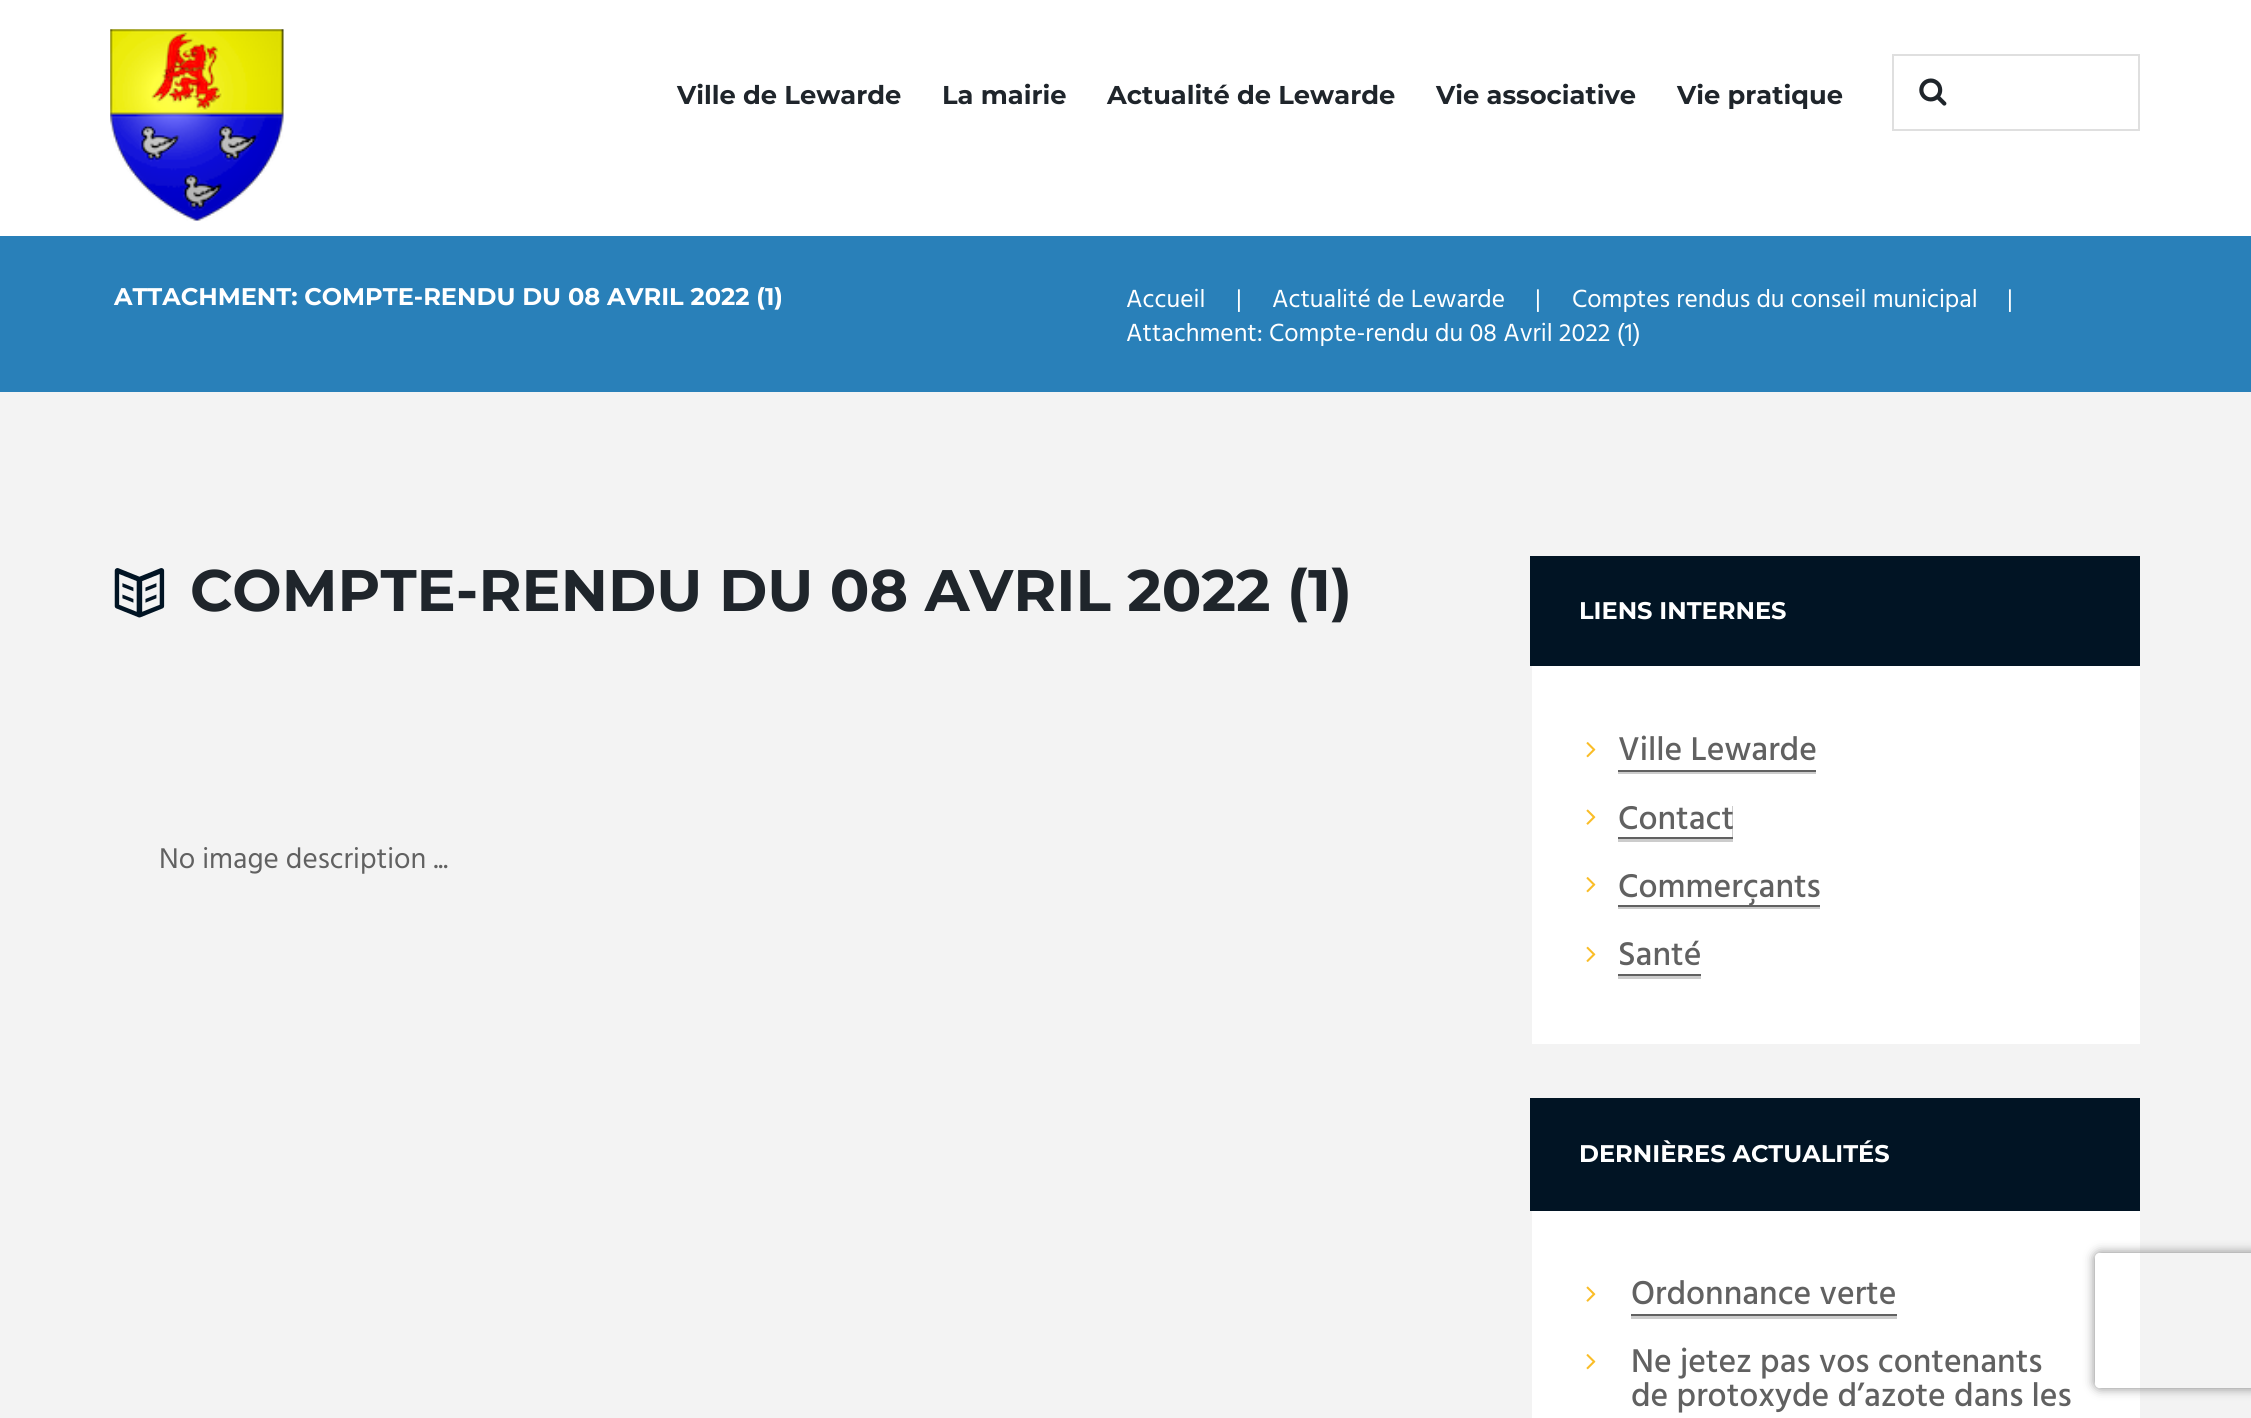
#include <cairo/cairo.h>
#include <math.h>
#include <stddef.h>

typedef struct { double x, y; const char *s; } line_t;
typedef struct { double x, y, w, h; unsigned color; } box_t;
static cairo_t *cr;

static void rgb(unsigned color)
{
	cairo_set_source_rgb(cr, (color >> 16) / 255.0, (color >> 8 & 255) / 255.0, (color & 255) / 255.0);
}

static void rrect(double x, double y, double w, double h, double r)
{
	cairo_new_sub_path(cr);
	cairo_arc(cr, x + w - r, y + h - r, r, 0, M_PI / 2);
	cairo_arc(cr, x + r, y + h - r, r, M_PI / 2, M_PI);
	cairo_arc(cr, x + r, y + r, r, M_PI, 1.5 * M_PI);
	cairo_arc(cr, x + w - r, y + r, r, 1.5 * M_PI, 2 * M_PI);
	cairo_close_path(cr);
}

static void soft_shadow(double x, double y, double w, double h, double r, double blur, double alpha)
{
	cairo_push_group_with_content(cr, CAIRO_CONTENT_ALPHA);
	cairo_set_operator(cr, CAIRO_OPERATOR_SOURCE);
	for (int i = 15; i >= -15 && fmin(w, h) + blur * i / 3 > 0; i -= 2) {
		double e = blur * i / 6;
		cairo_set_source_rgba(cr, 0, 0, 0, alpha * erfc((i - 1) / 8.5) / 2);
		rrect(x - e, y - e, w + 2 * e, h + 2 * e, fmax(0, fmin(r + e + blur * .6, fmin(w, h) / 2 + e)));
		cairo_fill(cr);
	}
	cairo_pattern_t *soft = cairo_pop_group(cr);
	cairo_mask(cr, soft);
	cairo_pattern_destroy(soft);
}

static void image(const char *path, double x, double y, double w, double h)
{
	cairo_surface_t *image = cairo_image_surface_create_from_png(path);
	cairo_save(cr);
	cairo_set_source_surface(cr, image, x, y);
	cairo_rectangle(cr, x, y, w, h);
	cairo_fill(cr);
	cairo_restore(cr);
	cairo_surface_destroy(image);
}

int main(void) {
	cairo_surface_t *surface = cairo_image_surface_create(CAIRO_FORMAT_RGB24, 2251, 1418);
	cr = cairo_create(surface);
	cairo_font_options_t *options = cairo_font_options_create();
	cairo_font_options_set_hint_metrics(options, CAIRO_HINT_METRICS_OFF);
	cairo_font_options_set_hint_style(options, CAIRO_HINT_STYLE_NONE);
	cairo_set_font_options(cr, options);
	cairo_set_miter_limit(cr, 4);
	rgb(0xf3f3f3);
	cairo_paint(cr);
	rgb(0xffffff);
	cairo_rectangle(cr, 0, 0, 2251, 236);
	cairo_fill(cr);
	image("img/1.png", 110, 29, 174, 192);
	cairo_rectangle(cr, 1893, 55, 246, 75);
	rgb(0xdfdfdf);
	cairo_stroke(cr);
	image("img/2.png", 1919, 78, 28, 28);
	rgb(0x2980b9);
	cairo_rectangle(cr, 0, 236, 2251, 156);
	cairo_fill(cr);
	image("img/3.png", 114, 568, 51, 50);
	rgb(0xffffff);
	cairo_rectangle(cr, 1532, 666, 608, 378);
	cairo_fill(cr);
	rgb(0x011424);
	cairo_rectangle(cr, 1530, 556, 610, 110);
	cairo_fill(cr);
	image("img/4.png", 1586, 742, 10, 16);
	rgb(0xcccccc);
	cairo_new_path(cr);
	cairo_move_to(cr, 1618, 772);
	cairo_line_to(cr, 1618, 774);
	cairo_line_to(cr, 1816, 774);
	cairo_line_to(cr, 1816, 738);
	cairo_line_to(cr, 1816, 772);
	cairo_close_path(cr);
	cairo_fill(cr);
	rgb(0x616161);
	cairo_rectangle(cr, 1618, 770, 198, 2);
	cairo_fill(cr);
	image("img/5.png", 1586, 809, 10, 16);
	rgb(0xcccccc);
	cairo_new_path(cr);
	cairo_move_to(cr, 1618, 839);
	cairo_line_to(cr, 1618, 842);
	cairo_line_to(cr, 1733, 842);
	cairo_line_to(cr, 1733, 806);
	cairo_line_to(cr, 1732, 806);
	cairo_line_to(cr, 1732, 839);
	cairo_close_path(cr);
	cairo_fill(cr);
	rgb(0x616161);
	cairo_rectangle(cr, 1618, 837, 115, 2);
	cairo_fill(cr);
	image("img/4.png", 1586, 877, 10, 16);
	rgb(0xcccccc);
	cairo_rectangle(cr, 1618, 907, 202, 2);
	cairo_fill(cr);
	rgb(0x616161);
	cairo_rectangle(cr, 1618, 905, 202, 2);
	cairo_fill(cr);
	image("img/6.png", 1586, 946, 10, 16);
	{
		static const box_t items[] = {
			{1618, 976, 83, 3, 0xcccccc},
			{1618, 974, 83, 2, 0x616161},
			{1532, 1211, 608, 207, 0xffffff},
			{1530, 1098, 610, 113, 0x011424},
		};
		for (size_t i = 0; i < sizeof items / sizeof *items; i++) {
			rgb(items[i].color);
			cairo_rectangle(cr, items[i].x, items[i].y, items[i].w, items[i].h);
			cairo_fill(cr);
		}
	}
	image("img/5.png", 1586, 1286, 10, 16);
	rgb(0xcccccc);
	cairo_new_path(cr);
	cairo_move_to(cr, 1631, 1283);
	cairo_line_to(cr, 1631, 1319);
	cairo_line_to(cr, 1897, 1319);
	cairo_line_to(cr, 1897, 1283);
	cairo_line_to(cr, 1897, 1316);
	cairo_line_to(cr, 1631, 1316);
	cairo_close_path(cr);
	cairo_fill(cr);
	rgb(0x616161);
	cairo_rectangle(cr, 1631, 1314, 266, 2);
	cairo_fill(cr);
	image("img/4.png", 1586, 1354, 10, 16);
	cairo_save(cr);
	cairo_set_fill_rule(cr, CAIRO_FILL_RULE_EVEN_ODD);
	cairo_new_path(cr);
	cairo_move_to(cr, 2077, 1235);
	cairo_line_to(cr, 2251, 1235);
	cairo_line_to(cr, 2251, 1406);
	cairo_line_to(cr, 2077, 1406);
	cairo_close_path(cr);
	cairo_move_to(cr, 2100, 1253);
	cairo_line_to(cr, 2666, 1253);
	cairo_curve_to(cr, 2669, 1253, 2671, 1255, 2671, 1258);
	cairo_line_to(cr, 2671, 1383);
	cairo_curve_to(cr, 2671, 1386, 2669, 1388, 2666, 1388);
	cairo_line_to(cr, 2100, 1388);
	cairo_curve_to(cr, 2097, 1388, 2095, 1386, 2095, 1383);
	cairo_line_to(cr, 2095, 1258);
	cairo_curve_to(cr, 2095, 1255, 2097, 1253, 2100, 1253);
	cairo_close_path(cr);
	cairo_clip(cr);
	rgb(0x808080);
	soft_shadow(2095, 1253, 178, 135, 5, 5.5, 1);
	cairo_restore(cr);
	cairo_select_font_face(cr, "Montserrat", CAIRO_FONT_SLANT_NORMAL, CAIRO_FONT_WEIGHT_BOLD);
	cairo_set_font_size(cr, 25.75);
	rgb(0x1f252b);
	{
		static const line_t items[] = {
			{677, 104, "Ville de Lewarde"},
			{942, 104, "La mairie"},
			{1107, 104, "Actualité de Lewarde"},
			{1436, 104, "Vie associative"},
			{1677, 104, "Vie pratique"},
		};
		for (size_t i = 0; i < sizeof items / sizeof *items; i++) {
			cairo_move_to(cr, items[i].x, items[i].y);
			cairo_show_text(cr, items[i].s);
		}
	}
	cairo_set_font_size(cr, 24.1);
	rgb(0xffffff);
	cairo_move_to(cr, 114, 305);
	cairo_show_text(cr, "ATTACHMENT: COMPTE-RENDU DU 08 AVRIL 2022 (1)");
	cairo_select_font_face(cr, "Hind", CAIRO_FONT_SLANT_NORMAL, CAIRO_FONT_WEIGHT_NORMAL);
	cairo_set_font_size(cr, 25.45);
	{
		static const line_t items[] = {
			{1126, 307, "Accueil"},
			{1236, 307, "|"},
			{1272, 307, "Actualité de Lewarde"},
			{1535, 307, "|"},
			{1572, 307, "Comptes rendus du conseil municipal"},
			{2007, 307, "|"},
			{1126, 341, "Attachment: Compte-rendu du 08 Avril 2022 (1)"},
		};
		for (size_t i = 0; i < sizeof items / sizeof *items; i++) {
			cairo_move_to(cr, items[i].x, items[i].y);
			cairo_show_text(cr, items[i].s);
		}
	}
	cairo_select_font_face(cr, "Montserrat", CAIRO_FONT_SLANT_NORMAL, CAIRO_FONT_WEIGHT_BOLD);
	cairo_set_font_size(cr, 58.5);
	rgb(0x1f252b);
	cairo_move_to(cr, 190, 611);
	cairo_show_text(cr, "COMPTE-RENDU DU 08 AVRIL 2022 (1)");
	cairo_select_font_face(cr, "Hind", CAIRO_FONT_SLANT_NORMAL, CAIRO_FONT_WEIGHT_NORMAL);
	cairo_set_font_size(cr, 29.25);
	rgb(0x616161);
	cairo_move_to(cr, 159, 868);
	cairo_show_text(cr, "No image description ...");
	cairo_select_font_face(cr, "Montserrat", CAIRO_FONT_SLANT_NORMAL, CAIRO_FONT_WEIGHT_BOLD);
	cairo_set_font_size(cr, 24.1);
	rgb(0xffffff);
	cairo_move_to(cr, 1579, 619);
	cairo_show_text(cr, "LIENS INTERNES");
	cairo_select_font_face(cr, "Hind Medium", CAIRO_FONT_SLANT_NORMAL, CAIRO_FONT_WEIGHT_NORMAL);
	cairo_set_font_size(cr, 33.75);
	rgb(0x616161);
	{
		static const line_t items[] = {
			{1618, 760, "Ville Lewarde"},
			{1618, 829, "Contact"},
			{1618, 897, "Commerçants"},
			{1618, 965, "Santé"},
		};
		for (size_t i = 0; i < sizeof items / sizeof *items; i++) {
			cairo_move_to(cr, items[i].x, items[i].y);
			cairo_show_text(cr, items[i].s);
		}
	}
	cairo_select_font_face(cr, "Montserrat", CAIRO_FONT_SLANT_NORMAL, CAIRO_FONT_WEIGHT_BOLD);
	cairo_set_font_size(cr, 24.1);
	rgb(0xffffff);
	cairo_move_to(cr, 1579, 1162);
	cairo_show_text(cr, "DERNIÈRES ACTUALITÉS");
	cairo_select_font_face(cr, "Hind Medium", CAIRO_FONT_SLANT_NORMAL, CAIRO_FONT_WEIGHT_NORMAL);
	cairo_set_font_size(cr, 33.75);
	rgb(0x616161);
	{
		static const line_t items[] = {
			{1631, 1304, "Ordonnance verte"},
			{1631, 1372, "Ne jetez pas vos contenants"},
			{1631, 1406, "de protoxyde d’azote dans les"},
		};
		for (size_t i = 0; i < sizeof items / sizeof *items; i++) {
			cairo_move_to(cr, items[i].x, items[i].y);
			cairo_show_text(cr, items[i].s);
		}
	}
	cairo_surface_write_to_png(surface, "page.png");
	cairo_font_options_destroy(options);
	cairo_destroy(cr);
	cairo_surface_destroy(surface);
	return 0;
}
